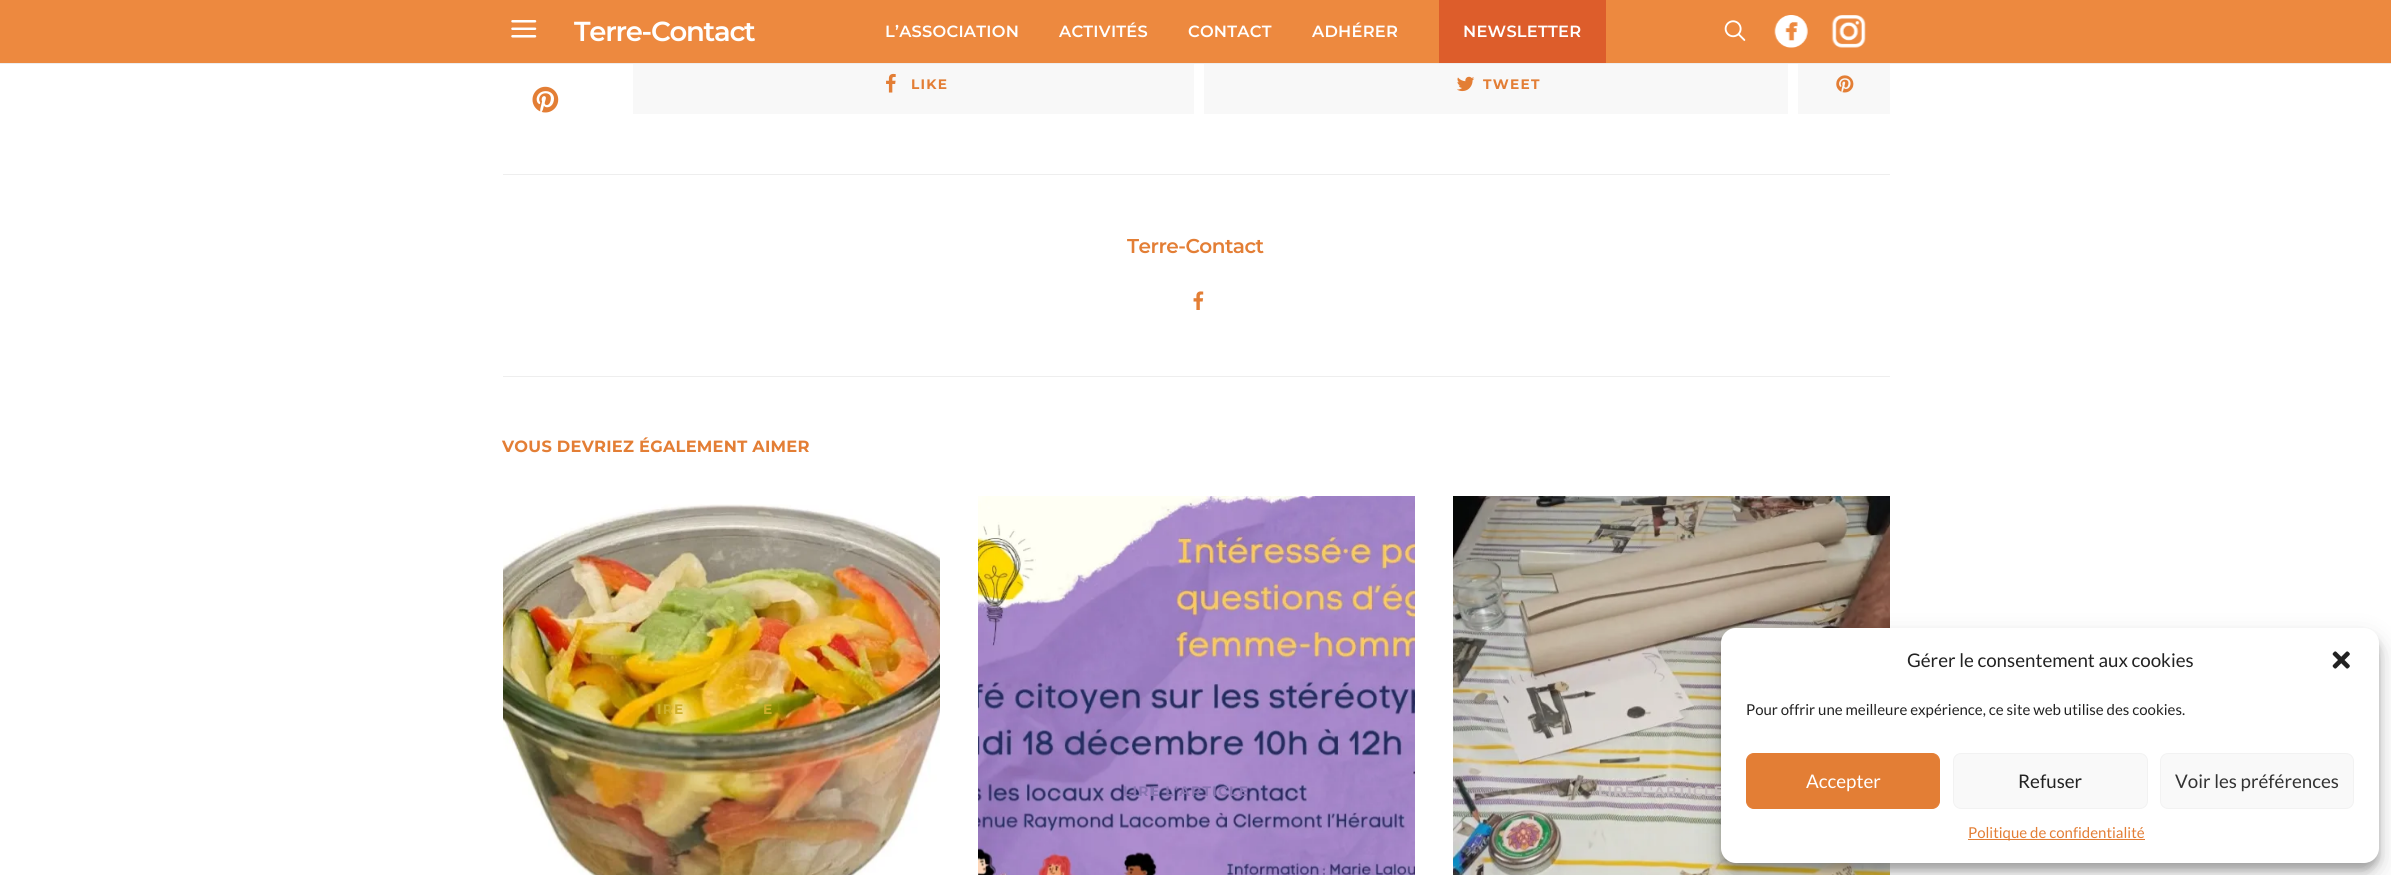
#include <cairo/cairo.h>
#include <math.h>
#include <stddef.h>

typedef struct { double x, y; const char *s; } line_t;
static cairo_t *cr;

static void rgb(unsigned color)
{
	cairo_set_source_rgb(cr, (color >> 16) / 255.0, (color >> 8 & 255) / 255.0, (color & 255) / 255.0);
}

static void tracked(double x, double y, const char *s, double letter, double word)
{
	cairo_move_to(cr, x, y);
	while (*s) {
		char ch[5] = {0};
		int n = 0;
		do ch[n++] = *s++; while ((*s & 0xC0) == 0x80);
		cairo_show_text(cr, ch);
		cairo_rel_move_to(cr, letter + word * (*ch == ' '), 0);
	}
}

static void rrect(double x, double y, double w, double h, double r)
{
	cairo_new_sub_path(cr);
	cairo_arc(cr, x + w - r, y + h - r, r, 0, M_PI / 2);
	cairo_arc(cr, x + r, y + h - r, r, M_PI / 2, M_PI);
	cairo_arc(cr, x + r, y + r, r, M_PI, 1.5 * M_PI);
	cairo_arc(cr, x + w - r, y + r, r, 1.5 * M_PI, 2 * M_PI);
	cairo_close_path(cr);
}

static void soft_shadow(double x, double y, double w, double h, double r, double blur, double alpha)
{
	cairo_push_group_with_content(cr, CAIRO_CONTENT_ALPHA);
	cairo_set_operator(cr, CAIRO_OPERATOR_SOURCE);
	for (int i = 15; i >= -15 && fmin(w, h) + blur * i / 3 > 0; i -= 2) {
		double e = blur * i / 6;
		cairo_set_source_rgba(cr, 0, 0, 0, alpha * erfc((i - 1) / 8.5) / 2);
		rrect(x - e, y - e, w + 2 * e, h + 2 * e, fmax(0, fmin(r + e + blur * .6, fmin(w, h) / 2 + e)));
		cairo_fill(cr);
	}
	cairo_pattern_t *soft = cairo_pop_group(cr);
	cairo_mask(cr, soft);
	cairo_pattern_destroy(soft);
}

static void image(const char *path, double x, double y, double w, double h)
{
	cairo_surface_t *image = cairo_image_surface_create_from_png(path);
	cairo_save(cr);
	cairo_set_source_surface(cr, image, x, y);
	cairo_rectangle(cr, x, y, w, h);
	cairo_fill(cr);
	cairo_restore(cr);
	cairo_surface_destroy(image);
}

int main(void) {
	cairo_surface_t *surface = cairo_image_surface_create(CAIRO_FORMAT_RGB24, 2391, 875);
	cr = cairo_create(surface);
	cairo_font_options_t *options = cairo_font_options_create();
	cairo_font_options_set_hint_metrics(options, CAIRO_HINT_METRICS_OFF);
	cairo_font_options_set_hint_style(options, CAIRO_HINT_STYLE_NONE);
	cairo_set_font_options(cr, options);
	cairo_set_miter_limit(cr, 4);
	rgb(0xffffff);
	cairo_paint(cr);
	rgb(0xed893f);
	cairo_rectangle(cr, 0, 0, 2391, 63);
	cairo_fill(cr);
	rgb(0xeeeeee);
	cairo_rectangle(cr, 0, 63, 2391, 1);
	cairo_fill(cr);
	image("img/1.png", 511, 20, 26, 18);
	rgb(0xdd5d2b);
	cairo_rectangle(cr, 1439, 0, 167, 63);
	cairo_fill(cr);
	image("img/2.png", 1724, 20, 22, 21);
	image("img/3.png", 1774, 15, 34, 33);
	image("img/4.png", 1831, 15, 35, 33);
	rgb(0xf8f8f8);
	cairo_rectangle(cr, 633, 64, 561, 50);
	cairo_fill(cr);
	image("img/5.png", 886, 73, 10, 20);
	cairo_rectangle(cr, 1204, 64, 584, 50);
	cairo_fill(cr);
	image("img/6.png", 1457, 76, 18, 16);
	cairo_rectangle(cr, 1798, 64, 92, 50);
	cairo_fill(cr);
	image("img/7.png", 1836, 75, 18, 18);
	image("img/8.png", 532, 86, 27, 27);
	rgb(0xeeeeee);
	cairo_rectangle(cr, 503, 174, 1387, 1);
	cairo_fill(cr);
	image("img/9.png", 1193, 291, 11, 19);
	cairo_rectangle(cr, 503, 376, 1387, 1);
	cairo_fill(cr);
	image("img/10.png", 503, 504, 437, 371);
	image("img/11.png", 978, 496, 437, 379);
	image("img/12.png", 1453, 496, 437, 379);
	rgb(0x000000);
	soft_shadow(1721, 635, 658, 235, 15, 4, 0.23);
	soft_shadow(1721, 640, 658, 235, 15, 12.5, 0.19);
	cairo_select_font_face(cr, "Montserrat SemiBold", CAIRO_FONT_SLANT_NORMAL, CAIRO_FONT_WEIGHT_NORMAL);
	cairo_set_font_size(cr, 27.5);
	rgb(0xffffff);
	tracked(574, 41, "Terre-Contact", -1.25, 0);
	cairo_set_font_size(cr, 16.25);
	{
		static const line_t items[] = {
			{885, 37, "L’ASSOCIATION"},
			{1059, 37, "ACTIVITÉS"},
			{1188, 37, "CONTACT"},
			{1312, 37, "ADHÉRER"},
			{1463, 37, "NEWSLETTER"},
		};
		for (size_t i = 0; i < sizeof items / sizeof *items; i++) {
			tracked(items[i].x, items[i].y, items[i].s, 0.25, 0);
		}
	}
	cairo_select_font_face(cr, "Montserrat", CAIRO_FONT_SLANT_NORMAL, CAIRO_FONT_WEIGHT_BOLD);
	cairo_set_font_size(cr, 13.75);
	rgb(0xe37e35);
	tracked(911, 89, "LIKE", 1.25, 0);
	tracked(1483, 89, "TWEET", 1.25, 0);
	cairo_select_font_face(cr, "Montserrat SemiBold", CAIRO_FONT_SLANT_NORMAL, CAIRO_FONT_WEIGHT_NORMAL);
	cairo_set_font_size(cr, 20);
	tracked(1127, 253, "Terre-Contact", -0.5, 0);
	cairo_select_font_face(cr, "Montserrat", CAIRO_FONT_SLANT_NORMAL, CAIRO_FONT_WEIGHT_BOLD);
	cairo_set_font_size(cr, 16.25);
	tracked(502, 452, "VOUS DEVRIEZ ÉGALEMENT AIMER", 0.25, 0);
	cairo_set_font_size(cr, 13.75);
	rgb(0xceaf2c);
	tracked(657, 714, "IRE", 1.25, 0);
	tracked(763, 714, "E", 1.25, 0);
	rgb(0x8773b0);
	tracked(1123, 796, "LIRE L'ARTICLE", 1.25, 0);
	rgb(0xc3bbbd);
	tracked(1598, 796, "LIRE L'ARTICLE", 1.25, 0);
	rgb(0xffffff);
	rrect(1721, 628, 658, 235, 15);
	cairo_fill(cr);
	cairo_select_font_face(cr, "Lato", CAIRO_FONT_SLANT_NORMAL, CAIRO_FONT_WEIGHT_NORMAL);
	cairo_set_font_size(cr, 18.75);
	rgb(0x222222);
	cairo_move_to(cr, 1907, 667);
	cairo_show_text(cr, "Gérer le consentement aux cookies");
	image("img/13.png", 2332, 651, 18, 18);
	cairo_set_font_size(cr, 15);
	cairo_move_to(cr, 1746, 715);
	cairo_show_text(cr, "Pour offrir une meilleure expérience, ce site web utilise des cookies.");
	rgb(0xe37e35);
	rrect(1746.5, 753.5, 193, 55, 7.5);
	cairo_fill_preserve(cr);
	cairo_set_line_width(cr, 1);
	cairo_stroke(cr);
	cairo_set_font_size(cr, 18.75);
	rgb(0xffffff);
	cairo_move_to(cr, 1806, 788);
	cairo_show_text(cr, "Accepter");
	rgb(0xf9f9f9);
	rrect(1953.5, 753.5, 194, 55, 7.5);
	cairo_fill_preserve(cr);
	rgb(0xf2f2f2);
	cairo_stroke(cr);
	rgb(0x222222);
	cairo_move_to(cr, 2018, 788);
	cairo_show_text(cr, "Refuser");
	rgb(0xf9f9f9);
	rrect(2160.5, 753.5, 193, 55, 7.5);
	cairo_fill_preserve(cr);
	rgb(0xf2f2f2);
	cairo_stroke(cr);
	rgb(0x333333);
	cairo_move_to(cr, 2175, 788);
	cairo_show_text(cr, "Voir les préférences");
	rgb(0xe37e35);
	cairo_rectangle(cr, 1968, 839, 177, 1);
	cairo_fill(cr);
	cairo_set_font_size(cr, 15);
	cairo_move_to(cr, 1968, 838);
	cairo_show_text(cr, "Politique de confidentialité");
	cairo_surface_write_to_png(surface, "page.png");
	cairo_font_options_destroy(options);
	cairo_destroy(cr);
	cairo_surface_destroy(surface);
	return 0;
}
